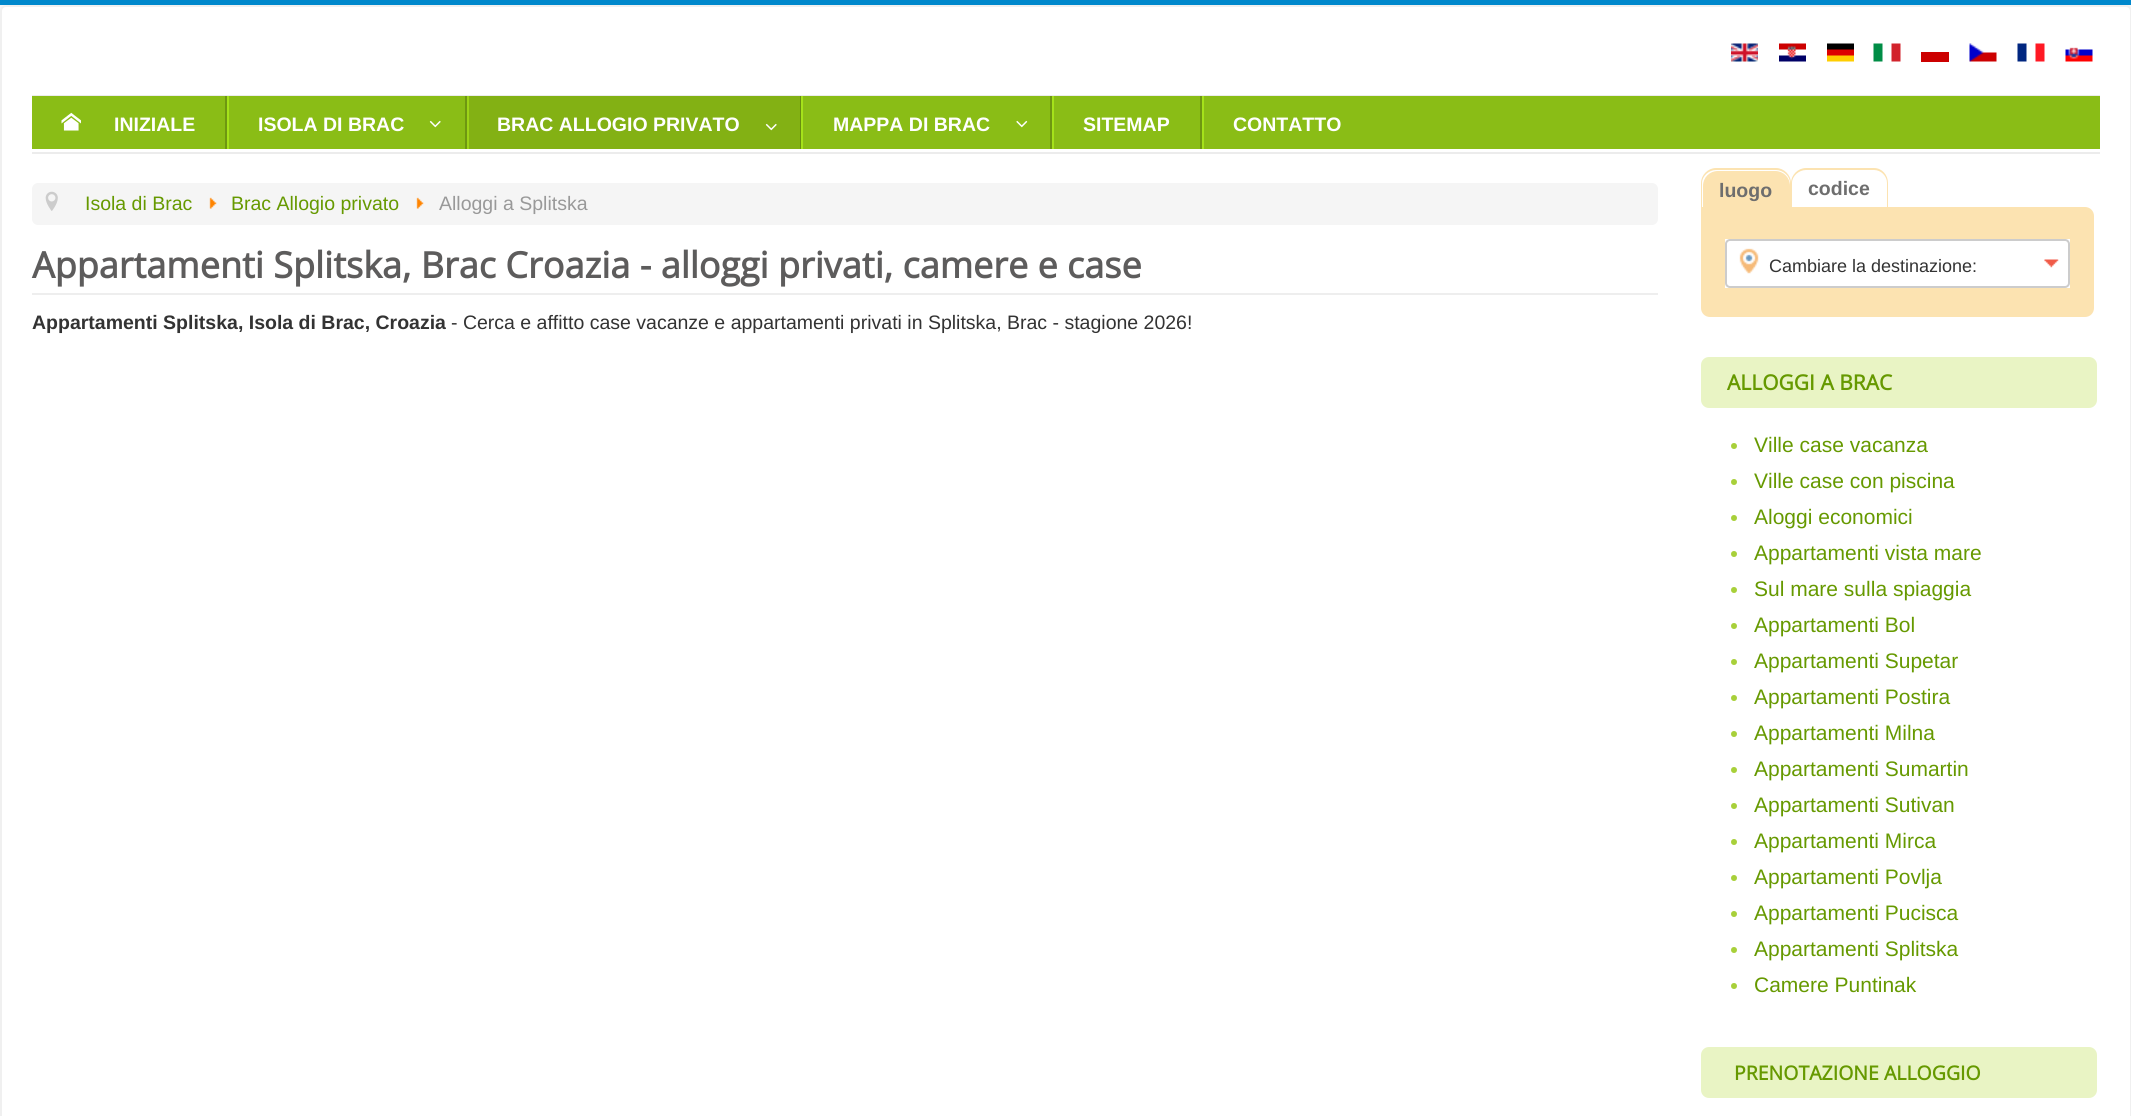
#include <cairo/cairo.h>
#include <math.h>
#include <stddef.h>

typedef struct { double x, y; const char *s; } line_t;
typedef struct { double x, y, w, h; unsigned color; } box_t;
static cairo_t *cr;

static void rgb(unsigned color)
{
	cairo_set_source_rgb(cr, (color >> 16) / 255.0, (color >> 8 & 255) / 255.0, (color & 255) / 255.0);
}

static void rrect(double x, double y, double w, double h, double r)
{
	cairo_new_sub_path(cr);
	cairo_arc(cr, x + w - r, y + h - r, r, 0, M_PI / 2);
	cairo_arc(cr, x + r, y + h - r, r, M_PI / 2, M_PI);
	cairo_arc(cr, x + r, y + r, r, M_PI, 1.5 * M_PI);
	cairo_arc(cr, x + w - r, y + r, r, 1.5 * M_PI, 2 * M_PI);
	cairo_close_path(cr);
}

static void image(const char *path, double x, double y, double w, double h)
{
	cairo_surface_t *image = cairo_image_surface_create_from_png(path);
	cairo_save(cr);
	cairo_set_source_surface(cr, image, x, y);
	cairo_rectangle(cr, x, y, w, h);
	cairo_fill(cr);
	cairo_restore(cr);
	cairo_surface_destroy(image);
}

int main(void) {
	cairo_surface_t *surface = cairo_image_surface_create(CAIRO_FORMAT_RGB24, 2131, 1116);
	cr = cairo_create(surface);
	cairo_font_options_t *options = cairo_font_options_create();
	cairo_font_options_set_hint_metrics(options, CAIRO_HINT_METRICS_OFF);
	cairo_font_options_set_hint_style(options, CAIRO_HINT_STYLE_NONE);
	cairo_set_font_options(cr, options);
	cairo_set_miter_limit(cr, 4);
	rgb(0xf4f6f7);
	cairo_paint(cr);
	rgb(0x0088cc);
	cairo_rectangle(cr, 0, 0, 2131, 5);
	cairo_fill(cr);
	rgb(0xffffff);
	rrect(1, 6, 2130, 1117, 5);
	cairo_fill_preserve(cr);
	rgb(0xf0f0f0);
	cairo_stroke(cr);
	image("img/1.png", 1731, 43, 27, 19);
	image("img/2.png", 1779, 43, 27, 19);
	image("img/3.png", 1827, 43, 27, 19);
	image("img/4.png", 1873, 43, 28, 19);
	rgb(0xcc0000);
	cairo_rectangle(cr, 1921, 52, 28, 10);
	cairo_fill(cr);
	image("img/5.png", 1969, 43, 28, 19);
	image("img/6.png", 2017, 43, 28, 19);
	image("img/7.png", 2065, 47, 28, 15);
	{
		static const box_t items[] = {
			{32, 95, 2068, 1, 0xececec},
			{32, 152, 2068, 2, 0xececec},
			{32, 96, 2068, 53, 0x8abd16},
			{225, 96, 2, 53, 0x6e9711},
		};
		for (size_t i = 0; i < sizeof items / sizeof *items; i++) {
			rgb(items[i].color);
			cairo_rectangle(cr, items[i].x, items[i].y, items[i].w, items[i].h);
			cairo_fill(cr);
		}
	}
	image("img/8.png", 61, 112, 20, 19);
	cairo_rectangle(cr, 465, 96, 2, 53);
	cairo_fill(cr);
	rgb(0xa5e21a);
	cairo_rectangle(cr, 227, 96, 2, 53);
	cairo_fill(cr);
	image("img/9.png", 429, 120, 12, 8);
	{
		static const box_t items[] = {
			{469, 96, 331, 53, 0x83b114},
			{800, 96, 1, 53, 0x688d10},
			{467, 96, 2, 53, 0x9dd418},
		};
		for (size_t i = 0; i < sizeof items / sizeof *items; i++) {
			rgb(items[i].color);
			cairo_rectangle(cr, items[i].x, items[i].y, items[i].w, items[i].h);
			cairo_fill(cr);
		}
	}
	image("img/10.png", 765, 123, 12, 8);
	rgb(0x6e9711);
	cairo_rectangle(cr, 1050, 96, 2, 53);
	cairo_fill(cr);
	rgb(0xa5e21a);
	cairo_rectangle(cr, 801, 96, 2, 53);
	cairo_fill(cr);
	image("img/11.png", 1016, 120, 12, 8);
	{
		static const box_t items[] = {
			{1200, 96, 2, 53, 0x6e9711},
			{1052, 96, 2, 53, 0xa5e21a},
			{1202, 96, 2, 53, 0xa5e21a},
		};
		for (size_t i = 0; i < sizeof items / sizeof *items; i++) {
			rgb(items[i].color);
			cairo_rectangle(cr, items[i].x, items[i].y, items[i].w, items[i].h);
			cairo_fill(cr);
		}
	}
	rgb(0xf5f5f5);
	rrect(32, 183, 1626, 42, 6);
	cairo_fill(cr);
	image("img/12.png", 45, 191, 13, 20);
	image("img/13.png", 209, 197, 8, 12);
	image("img/14.png", 416, 197, 8, 12);
	rgb(0xeeeeee);
	cairo_rectangle(cr, 32, 293, 1626, 2);
	cairo_fill(cr);
	rgb(0xfce3b1);
	cairo_set_fill_rule(cr, CAIRO_FILL_RULE_EVEN_ODD);
	cairo_new_path(cr);
	cairo_move_to(cr, 1716, 168);
	cairo_line_to(cr, 1776, 168);
	cairo_curve_to(cr, 1784, 168, 1791, 175, 1791, 183);
	cairo_line_to(cr, 1791, 207);
	cairo_line_to(cr, 1701, 207);
	cairo_line_to(cr, 1701, 183);
	cairo_curve_to(cr, 1701, 175, 1708, 168, 1716, 168);
	cairo_close_path(cr);
	cairo_move_to(cr, 1716, 170);
	cairo_line_to(cr, 1776, 170);
	cairo_curve_to(cr, 1783, 170, 1790, 176, 1790, 183);
	cairo_line_to(cr, 1790, 207);
	cairo_line_to(cr, 1702, 207);
	cairo_line_to(cr, 1702, 183);
	cairo_curve_to(cr, 1702, 176, 1709, 170, 1716, 170);
	cairo_close_path(cr);
	cairo_fill(cr);
	cairo_new_path(cr);
	cairo_move_to(cr, 1702, 208);
	cairo_line_to(cr, 2085, 208);
	cairo_curve_to(cr, 2089.5, 208, 2093, 211.5, 2093, 216);
	cairo_line_to(cr, 2093, 308);
	cairo_curve_to(cr, 2093, 312.5, 2089.5, 316, 2085, 316);
	cairo_line_to(cr, 1710, 316);
	cairo_curve_to(cr, 1705.5, 316, 1702, 312.5, 1702, 308);
	cairo_close_path(cr);
	cairo_fill_preserve(cr);
	cairo_stroke(cr);
	cairo_new_path(cr);
	cairo_move_to(cr, 1718, 171);
	cairo_line_to(cr, 1775, 171);
	cairo_curve_to(cr, 1783.5, 171, 1790, 177.5, 1790, 186);
	cairo_line_to(cr, 1790, 209);
	cairo_line_to(cr, 1703, 209);
	cairo_line_to(cr, 1703, 186);
	cairo_curve_to(cr, 1703, 177.5, 1709.5, 171, 1718, 171);
	cairo_close_path(cr);
	cairo_fill(cr);
	cairo_new_path(cr);
	cairo_move_to(cr, 1806, 168);
	cairo_line_to(cr, 1874, 168);
	cairo_curve_to(cr, 1882, 168, 1888, 175, 1888, 183);
	cairo_line_to(cr, 1888, 207);
	cairo_line_to(cr, 1791, 207);
	cairo_line_to(cr, 1791, 183);
	cairo_curve_to(cr, 1791, 175, 1798, 168, 1806, 168);
	cairo_close_path(cr);
	cairo_move_to(cr, 1806, 170);
	cairo_line_to(cr, 1874, 170);
	cairo_curve_to(cr, 1881, 170, 1887, 176, 1887, 183);
	cairo_line_to(cr, 1887, 207);
	cairo_line_to(cr, 1792, 207);
	cairo_line_to(cr, 1792, 183);
	cairo_curve_to(cr, 1792, 176, 1799, 170, 1806, 170);
	cairo_close_path(cr);
	cairo_fill(cr);
	rgb(0xffffff);
	cairo_rectangle(cr, 1725, 239, 345, 49);
	cairo_fill(cr);
	image("img/16.png", 2044, 259, 15, 9);
	rrect(1726, 240, 343, 47, 4);
	rgb(0xcccccc);
	cairo_stroke(cr);
	image("img/15.png", 1739, 248, 20, 26);
	rgb(0xe9f4c4);
	rrect(1701, 357, 396, 51, 8);
	cairo_fill(cr);
	rgb(0xa8d03a);
	cairo_arc(cr, 1734, 446, 3, 0, 2 * M_PI);
	cairo_fill(cr);
	cairo_arc(cr, 1734, 482, 3, 0, 2 * M_PI);
	cairo_fill(cr);
	cairo_arc(cr, 1734, 518, 3, 0, 2 * M_PI);
	cairo_fill(cr);
	cairo_arc(cr, 1734, 554, 3, 0, 2 * M_PI);
	cairo_fill(cr);
	cairo_arc(cr, 1734, 590, 3, 0, 2 * M_PI);
	cairo_fill(cr);
	cairo_arc(cr, 1734, 626, 3, 0, 2 * M_PI);
	cairo_fill(cr);
	cairo_arc(cr, 1734, 662, 3, 0, 2 * M_PI);
	cairo_fill(cr);
	cairo_arc(cr, 1734, 698, 3, 0, 2 * M_PI);
	cairo_fill(cr);
	cairo_arc(cr, 1734, 734, 3, 0, 2 * M_PI);
	cairo_fill(cr);
	cairo_arc(cr, 1734, 770, 3, 0, 2 * M_PI);
	cairo_fill(cr);
	cairo_arc(cr, 1734, 806, 3, 0, 2 * M_PI);
	cairo_fill(cr);
	cairo_arc(cr, 1734, 842, 3, 0, 2 * M_PI);
	cairo_fill(cr);
	cairo_arc(cr, 1734, 878, 3, 0, 2 * M_PI);
	cairo_fill(cr);
	cairo_arc(cr, 1734, 914, 3, 0, 2 * M_PI);
	cairo_fill(cr);
	cairo_arc(cr, 1734, 950, 3, 0, 2 * M_PI);
	cairo_fill(cr);
	cairo_arc(cr, 1734, 986, 3, 0, 2 * M_PI);
	cairo_fill(cr);
	rgb(0xe9f4c4);
	rrect(1701, 1047, 396, 51, 8);
	cairo_fill(cr);
	cairo_select_font_face(cr, "Liberation Sans", CAIRO_FONT_SLANT_NORMAL, CAIRO_FONT_WEIGHT_BOLD);
	cairo_set_font_size(cr, 19.5);
	rgb(0xffffff);
	{
		static const line_t items[] = {
			{114, 131, "INIZIALE"},
			{258, 131, "ISOLA DI BRAC"},
			{497, 131, "BRAC ALLOGIO PRIVATO"},
			{833, 131, "MAPPA DI BRAC"},
			{1083, 131, "SITEMAP"},
			{1233, 131, "CONTATTO"},
		};
		for (size_t i = 0; i < sizeof items / sizeof *items; i++) {
			cairo_move_to(cr, items[i].x, items[i].y);
			cairo_show_text(cr, items[i].s);
		}
	}
	cairo_select_font_face(cr, "Liberation Sans", CAIRO_FONT_SLANT_NORMAL, CAIRO_FONT_WEIGHT_NORMAL);
	rgb(0x669900);
	cairo_move_to(cr, 85, 210);
	cairo_show_text(cr, "Isola di Brac");
	cairo_move_to(cr, 231, 210);
	cairo_show_text(cr, "Brac Allogio privato");
	rgb(0x999999);
	cairo_move_to(cr, 439, 210);
	cairo_show_text(cr, "Alloggi a Splitska");
	cairo_select_font_face(cr, "Open Sans", CAIRO_FONT_SLANT_NORMAL, CAIRO_FONT_WEIGHT_BOLD);
	cairo_set_font_size(cr, 36);
	rgb(0x5d5c5c);
	cairo_move_to(cr, 32, 278);
	cairo_show_text(cr, "Appartamenti Splitska, Brac Croazia - alloggi privati, camere e case");
	cairo_select_font_face(cr, "Liberation Sans", CAIRO_FONT_SLANT_NORMAL, CAIRO_FONT_WEIGHT_BOLD);
	cairo_set_font_size(cr, 19.5);
	rgb(0x333333);
	cairo_move_to(cr, 32, 329);
	cairo_show_text(cr, "Appartamenti Splitska, Isola di Brac, Croazia");
	cairo_select_font_face(cr, "Liberation Sans", CAIRO_FONT_SLANT_NORMAL, CAIRO_FONT_WEIGHT_NORMAL);
	cairo_move_to(cr, 451, 329);
	cairo_show_text(cr, "- Cerca e affitto case vacanze e appartamenti privati in Splitska, Brac - stagione 2026!");
	cairo_select_font_face(cr, "Liberation Sans", CAIRO_FONT_SLANT_NORMAL, CAIRO_FONT_WEIGHT_BOLD);
	rgb(0x6e6e6e);
	cairo_move_to(cr, 1719, 197);
	cairo_show_text(cr, "luogo");
	cairo_move_to(cr, 1808, 195);
	cairo_show_text(cr, "codice");
	cairo_select_font_face(cr, "Liberation Sans", CAIRO_FONT_SLANT_NORMAL, CAIRO_FONT_WEIGHT_NORMAL);
	cairo_set_font_size(cr, 18);
	rgb(0x333333);
	cairo_move_to(cr, 1769, 272);
	cairo_show_text(cr, "Cambiare la destinazione:");
	cairo_select_font_face(cr, "Open Sans", CAIRO_FONT_SLANT_NORMAL, CAIRO_FONT_WEIGHT_BOLD);
	cairo_set_font_size(cr, 21);
	rgb(0x669900);
	cairo_move_to(cr, 1727, 390);
	cairo_show_text(cr, "ALLOGGI A BRAC");
	cairo_select_font_face(cr, "Liberation Sans", CAIRO_FONT_SLANT_NORMAL, CAIRO_FONT_WEIGHT_NORMAL);
	{
		static const line_t items[] = {
			{1754, 452, "Ville case vacanza"},
			{1754, 488, "Ville case con piscina"},
			{1754, 524, "Aloggi economici"},
			{1754, 560, "Appartamenti vista mare"},
			{1754, 596, "Sul mare sulla spiaggia"},
			{1754, 632, "Appartamenti Bol"},
			{1754, 668, "Appartamenti Supetar"},
			{1754, 704, "Appartamenti Postira"},
			{1754, 740, "Appartamenti Milna"},
			{1754, 776, "Appartamenti Sumartin"},
			{1754, 812, "Appartamenti Sutivan"},
			{1754, 848, "Appartamenti Mirca"},
			{1754, 884, "Appartamenti Povlja"},
			{1754, 920, "Appartamenti Pucisca"},
			{1754, 956, "Appartamenti Splitska"},
			{1754, 992, "Camere Puntinak"},
		};
		for (size_t i = 0; i < sizeof items / sizeof *items; i++) {
			cairo_move_to(cr, items[i].x, items[i].y);
			cairo_show_text(cr, items[i].s);
		}
	}
	cairo_select_font_face(cr, "Open Sans", CAIRO_FONT_SLANT_NORMAL, CAIRO_FONT_WEIGHT_BOLD);
	cairo_set_font_size(cr, 19.5);
	cairo_move_to(cr, 1734, 1080);
	cairo_show_text(cr, "PRENOTAZIONE ALLOGGIO");
	cairo_surface_write_to_png(surface, "page.png");
	cairo_font_options_destroy(options);
	cairo_destroy(cr);
	cairo_surface_destroy(surface);
	return 0;
}
